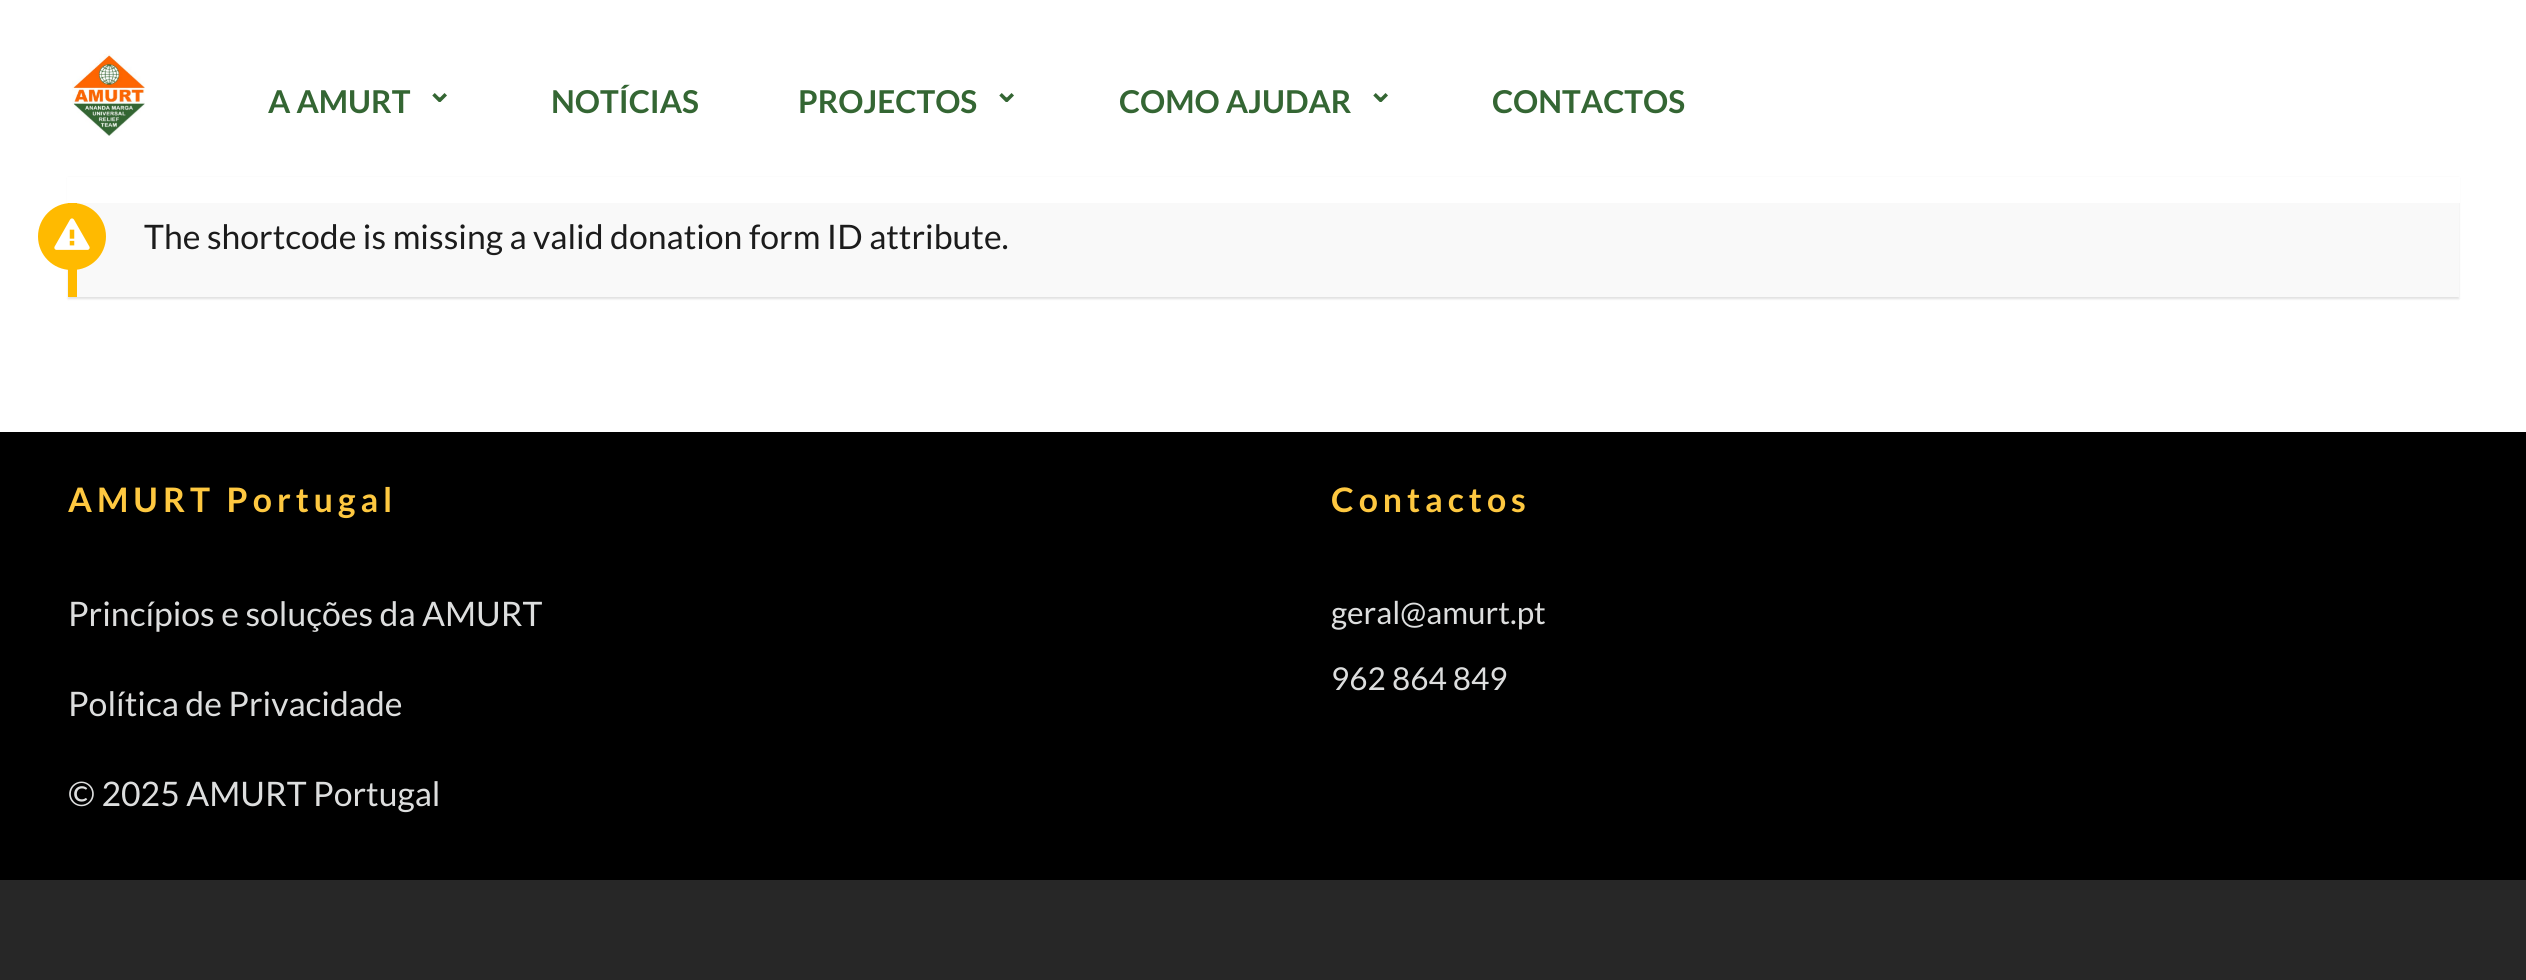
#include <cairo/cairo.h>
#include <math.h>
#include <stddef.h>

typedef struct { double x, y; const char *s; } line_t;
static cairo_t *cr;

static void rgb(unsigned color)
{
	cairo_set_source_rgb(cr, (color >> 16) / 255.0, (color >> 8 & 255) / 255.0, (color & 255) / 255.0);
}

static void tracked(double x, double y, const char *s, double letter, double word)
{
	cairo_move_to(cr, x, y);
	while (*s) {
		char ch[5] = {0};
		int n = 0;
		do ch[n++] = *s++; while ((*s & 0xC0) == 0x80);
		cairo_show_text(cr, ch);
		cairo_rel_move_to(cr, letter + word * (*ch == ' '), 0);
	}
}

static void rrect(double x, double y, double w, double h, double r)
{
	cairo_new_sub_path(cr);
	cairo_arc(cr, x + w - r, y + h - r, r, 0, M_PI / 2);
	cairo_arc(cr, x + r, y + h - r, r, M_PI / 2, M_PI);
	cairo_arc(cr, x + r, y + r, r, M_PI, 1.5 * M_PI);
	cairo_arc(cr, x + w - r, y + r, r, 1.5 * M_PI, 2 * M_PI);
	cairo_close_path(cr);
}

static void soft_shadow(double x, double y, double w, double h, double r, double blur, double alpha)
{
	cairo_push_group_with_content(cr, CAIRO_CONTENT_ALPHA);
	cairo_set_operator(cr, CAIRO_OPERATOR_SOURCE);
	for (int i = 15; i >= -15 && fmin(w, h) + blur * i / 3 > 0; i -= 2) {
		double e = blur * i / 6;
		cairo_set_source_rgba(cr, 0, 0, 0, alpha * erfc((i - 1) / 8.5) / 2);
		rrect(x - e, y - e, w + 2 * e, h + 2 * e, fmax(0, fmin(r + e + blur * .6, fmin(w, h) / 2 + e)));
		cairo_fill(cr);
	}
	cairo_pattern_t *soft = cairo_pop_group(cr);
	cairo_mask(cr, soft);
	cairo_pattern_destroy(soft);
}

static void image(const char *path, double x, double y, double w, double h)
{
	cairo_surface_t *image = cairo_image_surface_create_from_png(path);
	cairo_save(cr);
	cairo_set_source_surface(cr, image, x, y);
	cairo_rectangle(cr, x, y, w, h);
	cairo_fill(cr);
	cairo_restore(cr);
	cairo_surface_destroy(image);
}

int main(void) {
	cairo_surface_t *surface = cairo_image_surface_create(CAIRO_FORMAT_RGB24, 2526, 980);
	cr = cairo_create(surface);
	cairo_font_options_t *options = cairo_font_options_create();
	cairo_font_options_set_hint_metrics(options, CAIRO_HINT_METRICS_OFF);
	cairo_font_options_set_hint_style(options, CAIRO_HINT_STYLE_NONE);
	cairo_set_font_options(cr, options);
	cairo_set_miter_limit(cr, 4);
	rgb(0xffffff);
	cairo_paint(cr);
	rgb(0x000000);
	soft_shadow(68, 178, 2391, 121, 0, 1, 0.12);
	rgb(0xffffff);
	cairo_rectangle(cr, 67, 177, 2393, 26);
	cairo_fill(cr);
	image("img/1.png", 72, 54, 73, 82);
	rgb(0xf9f9f9);
	cairo_rectangle(cr, 77, 203, 2382, 94);
	cairo_fill(cr);
	rgb(0xffba00);
	cairo_rectangle(cr, 68, 203, 9, 94);
	cairo_fill(cr);
	rrect(38, 203, 68, 67, 33.5);
	cairo_fill(cr);
	image("img/2.png", 54, 218, 36, 32);
	rgb(0x272727);
	cairo_rectangle(cr, 0, 880, 2526, 100);
	cairo_fill(cr);
	rgb(0x000000);
	cairo_rectangle(cr, 0, 432, 2526, 448);
	cairo_fill(cr);
	cairo_select_font_face(cr, "Lato", CAIRO_FONT_SLANT_NORMAL, CAIRO_FONT_WEIGHT_BOLD);
	cairo_set_font_size(cr, 31.5);
	rgb(0x346633);
	cairo_move_to(cr, 268, 113);
	cairo_show_text(cr, "A AMURT");
	cairo_select_font_face(cr, "DejaVu Sans", CAIRO_FONT_SLANT_NORMAL, CAIRO_FONT_WEIGHT_BOLD);
	cairo_move_to(cr, 426, 102);
	cairo_show_text(cr, "⌄");
	cairo_select_font_face(cr, "Lato", CAIRO_FONT_SLANT_NORMAL, CAIRO_FONT_WEIGHT_BOLD);
	cairo_move_to(cr, 551, 113);
	cairo_show_text(cr, "NOTÍCIAS");
	cairo_move_to(cr, 798, 113);
	cairo_show_text(cr, "PROJECTOS");
	cairo_select_font_face(cr, "DejaVu Sans", CAIRO_FONT_SLANT_NORMAL, CAIRO_FONT_WEIGHT_BOLD);
	cairo_move_to(cr, 993, 102);
	cairo_show_text(cr, "⌄");
	cairo_select_font_face(cr, "Lato", CAIRO_FONT_SLANT_NORMAL, CAIRO_FONT_WEIGHT_BOLD);
	cairo_move_to(cr, 1119, 113);
	cairo_show_text(cr, "COMO AJUDAR");
	cairo_select_font_face(cr, "DejaVu Sans", CAIRO_FONT_SLANT_NORMAL, CAIRO_FONT_WEIGHT_BOLD);
	cairo_move_to(cr, 1367, 102);
	cairo_show_text(cr, "⌄");
	cairo_select_font_face(cr, "Lato", CAIRO_FONT_SLANT_NORMAL, CAIRO_FONT_WEIGHT_BOLD);
	cairo_move_to(cr, 1492, 113);
	cairo_show_text(cr, "CONTACTOS");
	cairo_select_font_face(cr, "Lato", CAIRO_FONT_SLANT_NORMAL, CAIRO_FONT_WEIGHT_NORMAL);
	cairo_set_font_size(cr, 33.75);
	rgb(0x1c1c1c);
	cairo_move_to(cr, 144, 249);
	cairo_show_text(cr, "The shortcode is missing a valid donation form ID attribute.");
	cairo_select_font_face(cr, "Lato", CAIRO_FONT_SLANT_NORMAL, CAIRO_FONT_WEIGHT_BOLD);
	rgb(0xfec840);
	tracked(68, 512, "AMURT Portugal", 5, 0);
	cairo_select_font_face(cr, "Lato", CAIRO_FONT_SLANT_NORMAL, CAIRO_FONT_WEIGHT_NORMAL);
	rgb(0xdddede);
	{
		static const line_t items[] = {
			{68, 626, "Princípios e soluções da AMURT"},
			{68, 716, "Política de Privacidade"},
			{68, 806, "© 2025 AMURT Portugal"},
		};
		for (size_t i = 0; i < sizeof items / sizeof *items; i++) {
			cairo_move_to(cr, items[i].x, items[i].y);
			cairo_show_text(cr, items[i].s);
		}
	}
	cairo_select_font_face(cr, "Lato", CAIRO_FONT_SLANT_NORMAL, CAIRO_FONT_WEIGHT_BOLD);
	rgb(0xfec840);
	tracked(1331, 512, "Contactos", 5, 0);
	cairo_select_font_face(cr, "Lato", CAIRO_FONT_SLANT_NORMAL, CAIRO_FONT_WEIGHT_NORMAL);
	cairo_set_font_size(cr, 31.5);
	rgb(0xdddede);
	cairo_move_to(cr, 1331, 624);
	cairo_show_text(cr, "geral@amurt.pt");
	cairo_move_to(cr, 1331, 690);
	cairo_show_text(cr, "962 864 849");
	cairo_surface_write_to_png(surface, "page.png");
	cairo_font_options_destroy(options);
	cairo_destroy(cr);
	cairo_surface_destroy(surface);
	return 0;
}
